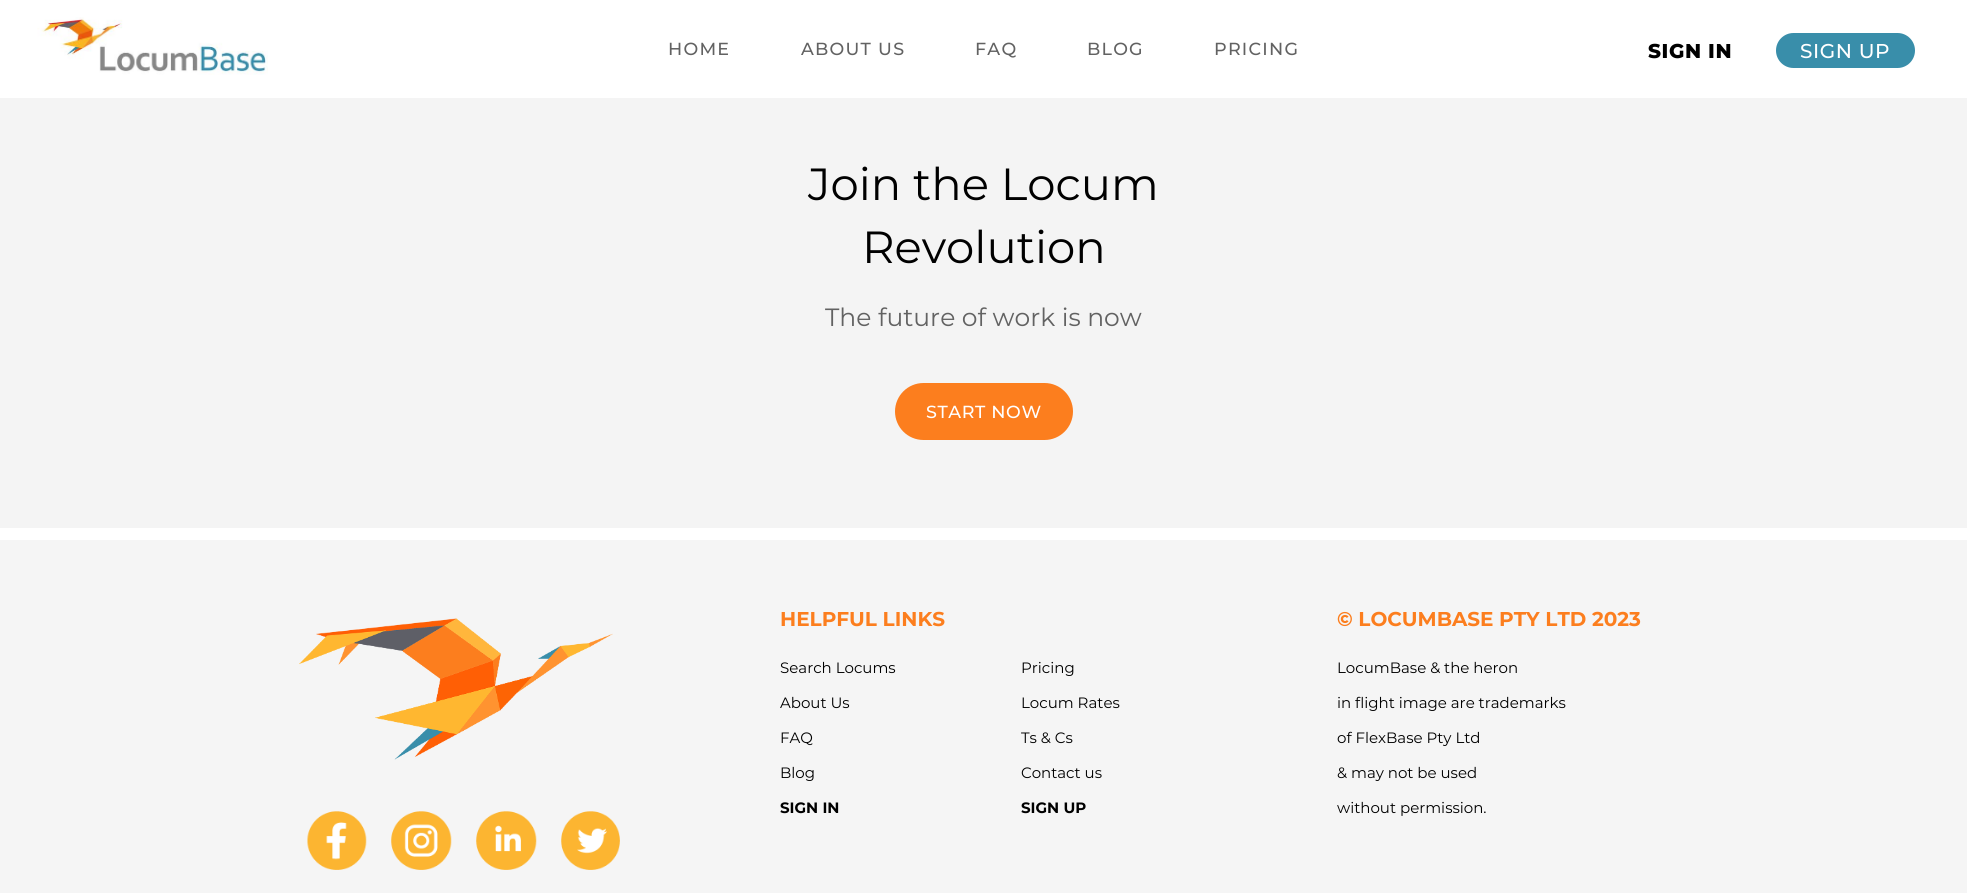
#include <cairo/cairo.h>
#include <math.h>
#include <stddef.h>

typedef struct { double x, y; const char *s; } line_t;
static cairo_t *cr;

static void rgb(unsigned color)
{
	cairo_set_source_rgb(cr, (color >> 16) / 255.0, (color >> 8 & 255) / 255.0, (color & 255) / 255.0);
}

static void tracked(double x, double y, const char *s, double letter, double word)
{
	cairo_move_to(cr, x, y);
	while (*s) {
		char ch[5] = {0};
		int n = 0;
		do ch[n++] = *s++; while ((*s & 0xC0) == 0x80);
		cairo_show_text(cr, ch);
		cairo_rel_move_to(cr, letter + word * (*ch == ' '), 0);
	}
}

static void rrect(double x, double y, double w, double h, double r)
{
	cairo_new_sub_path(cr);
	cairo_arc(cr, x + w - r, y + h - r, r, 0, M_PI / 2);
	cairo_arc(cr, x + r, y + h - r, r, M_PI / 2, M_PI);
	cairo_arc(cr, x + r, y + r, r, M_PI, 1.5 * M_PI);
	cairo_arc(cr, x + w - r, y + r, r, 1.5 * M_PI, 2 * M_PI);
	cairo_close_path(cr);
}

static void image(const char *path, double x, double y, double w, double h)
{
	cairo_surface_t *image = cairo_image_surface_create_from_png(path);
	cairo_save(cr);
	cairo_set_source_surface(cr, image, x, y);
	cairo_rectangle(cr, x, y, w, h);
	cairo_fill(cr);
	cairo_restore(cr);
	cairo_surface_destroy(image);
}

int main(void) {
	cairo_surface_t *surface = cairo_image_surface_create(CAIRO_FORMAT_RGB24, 1967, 893);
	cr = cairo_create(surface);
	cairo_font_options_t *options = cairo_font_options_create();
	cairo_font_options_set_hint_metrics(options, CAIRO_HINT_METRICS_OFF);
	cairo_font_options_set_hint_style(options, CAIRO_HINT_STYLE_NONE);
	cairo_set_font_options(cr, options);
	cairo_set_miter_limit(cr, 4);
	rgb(0xffffff);
	cairo_paint(cr);
	image("img/1.png", 37, 17, 231, 58);
	rgb(0x398eaa);
	rrect(1774.5, 31.5, 142, 38, 19);
	cairo_fill_preserve(cr);
	rgb(0xffffff);
	cairo_set_line_width(cr, 3);
	cairo_stroke(cr);
	rgb(0xf4f4f4);
	cairo_rectangle(cr, 0, 98, 1967, 430);
	cairo_fill(cr);
	rgb(0xfc7e1e);
	rrect(895, 383, 178, 57, 28.5);
	cairo_fill(cr);
	rgb(0xf5f5f5);
	cairo_rectangle(cr, 0, 540, 1967, 353);
	cairo_fill(cr);
	image("img/2.png", 299, 618, 314, 142);
	image("img/3.png", 307, 811, 60, 59);
	image("img/4.png", 391, 811, 61, 59);
	image("img/5.png", 476, 811, 61, 59);
	image("img/6.png", 561, 811, 59, 59);
	cairo_select_font_face(cr, "Montserrat Medium", CAIRO_FONT_SLANT_NORMAL, CAIRO_FONT_WEIGHT_NORMAL);
	cairo_set_font_size(cr, 17.5);
	rgb(0x626262);
	{
		static const line_t items[] = {
			{668, 55, "HOME"},
			{801, 55, "ABOUT US"},
			{975, 55, "FAQ"},
			{1087, 55, "BLOG"},
			{1214, 55, "PRICING"},
		};
		for (size_t i = 0; i < sizeof items / sizeof *items; i++) {
			tracked(items[i].x, items[i].y, items[i].s, 1.25, 0);
		}
	}
	cairo_select_font_face(cr, "Montserrat ExtraBold", CAIRO_FONT_SLANT_NORMAL, CAIRO_FONT_WEIGHT_NORMAL);
	cairo_set_font_size(cr, 20);
	rgb(0x000000);
	tracked(1648, 58, "SIGN IN", 0.6, 0);
	cairo_select_font_face(cr, "Montserrat Medium", CAIRO_FONT_SLANT_NORMAL, CAIRO_FONT_WEIGHT_NORMAL);
	rgb(0xffffff);
	tracked(1800, 58, "SIGN UP", 0.6, 0);
	cairo_select_font_face(cr, "Montserrat", CAIRO_FONT_SLANT_NORMAL, CAIRO_FONT_WEIGHT_NORMAL);
	cairo_set_font_size(cr, 45);
	rgb(0x000000);
	cairo_move_to(cr, 808, 200);
	cairo_show_text(cr, "Join the Locum");
	cairo_move_to(cr, 862, 263);
	cairo_show_text(cr, "Revolution");
	cairo_set_font_size(cr, 25);
	rgb(0x626262);
	cairo_move_to(cr, 825, 326);
	cairo_show_text(cr, "The future of work is now");
	cairo_select_font_face(cr, "Montserrat Medium", CAIRO_FONT_SLANT_NORMAL, CAIRO_FONT_WEIGHT_NORMAL);
	cairo_set_font_size(cr, 17.5);
	rgb(0xffffff);
	tracked(926, 418, "START NOW", 0.6, 0);
	cairo_select_font_face(cr, "Montserrat", CAIRO_FONT_SLANT_NORMAL, CAIRO_FONT_WEIGHT_BOLD);
	cairo_set_font_size(cr, 20);
	rgb(0xfc7e1e);
	cairo_move_to(cr, 780, 626);
	cairo_show_text(cr, "HELPFUL LINKS");
	cairo_select_font_face(cr, "Montserrat", CAIRO_FONT_SLANT_NORMAL, CAIRO_FONT_WEIGHT_NORMAL);
	cairo_set_font_size(cr, 15);
	rgb(0x000000);
	{
		static const line_t items[] = {
			{780, 673, "Search Locums"},
			{1021, 673, "Pricing"},
			{780, 708, "About Us"},
			{1021, 708, "Locum Rates"},
			{780, 743, "FAQ"},
			{1021, 743, "Ts & Cs"},
			{780, 778, "Blog"},
			{1021, 778, "Contact us"},
		};
		for (size_t i = 0; i < sizeof items / sizeof *items; i++) {
			cairo_move_to(cr, items[i].x, items[i].y);
			cairo_show_text(cr, items[i].s);
		}
	}
	cairo_select_font_face(cr, "Montserrat", CAIRO_FONT_SLANT_NORMAL, CAIRO_FONT_WEIGHT_BOLD);
	cairo_move_to(cr, 780, 813);
	cairo_show_text(cr, "SIGN IN");
	cairo_move_to(cr, 1021, 813);
	cairo_show_text(cr, "SIGN UP");
	cairo_set_font_size(cr, 20);
	rgb(0xfc7e1e);
	cairo_move_to(cr, 1337, 626);
	cairo_show_text(cr, "© LOCUMBASE PTY LTD 2023");
	cairo_select_font_face(cr, "Montserrat", CAIRO_FONT_SLANT_NORMAL, CAIRO_FONT_WEIGHT_NORMAL);
	cairo_set_font_size(cr, 15);
	rgb(0x000000);
	{
		static const line_t items[] = {
			{1337, 673, "LocumBase & the heron"},
			{1337, 708, "in flight image are trademarks"},
			{1337, 743, "of FlexBase Pty Ltd"},
			{1337, 778, "& may not be used"},
			{1337, 813, "without permission."},
		};
		for (size_t i = 0; i < sizeof items / sizeof *items; i++) {
			cairo_move_to(cr, items[i].x, items[i].y);
			cairo_show_text(cr, items[i].s);
		}
	}
	cairo_surface_write_to_png(surface, "page.png");
	cairo_font_options_destroy(options);
	cairo_destroy(cr);
	cairo_surface_destroy(surface);
	return 0;
}
